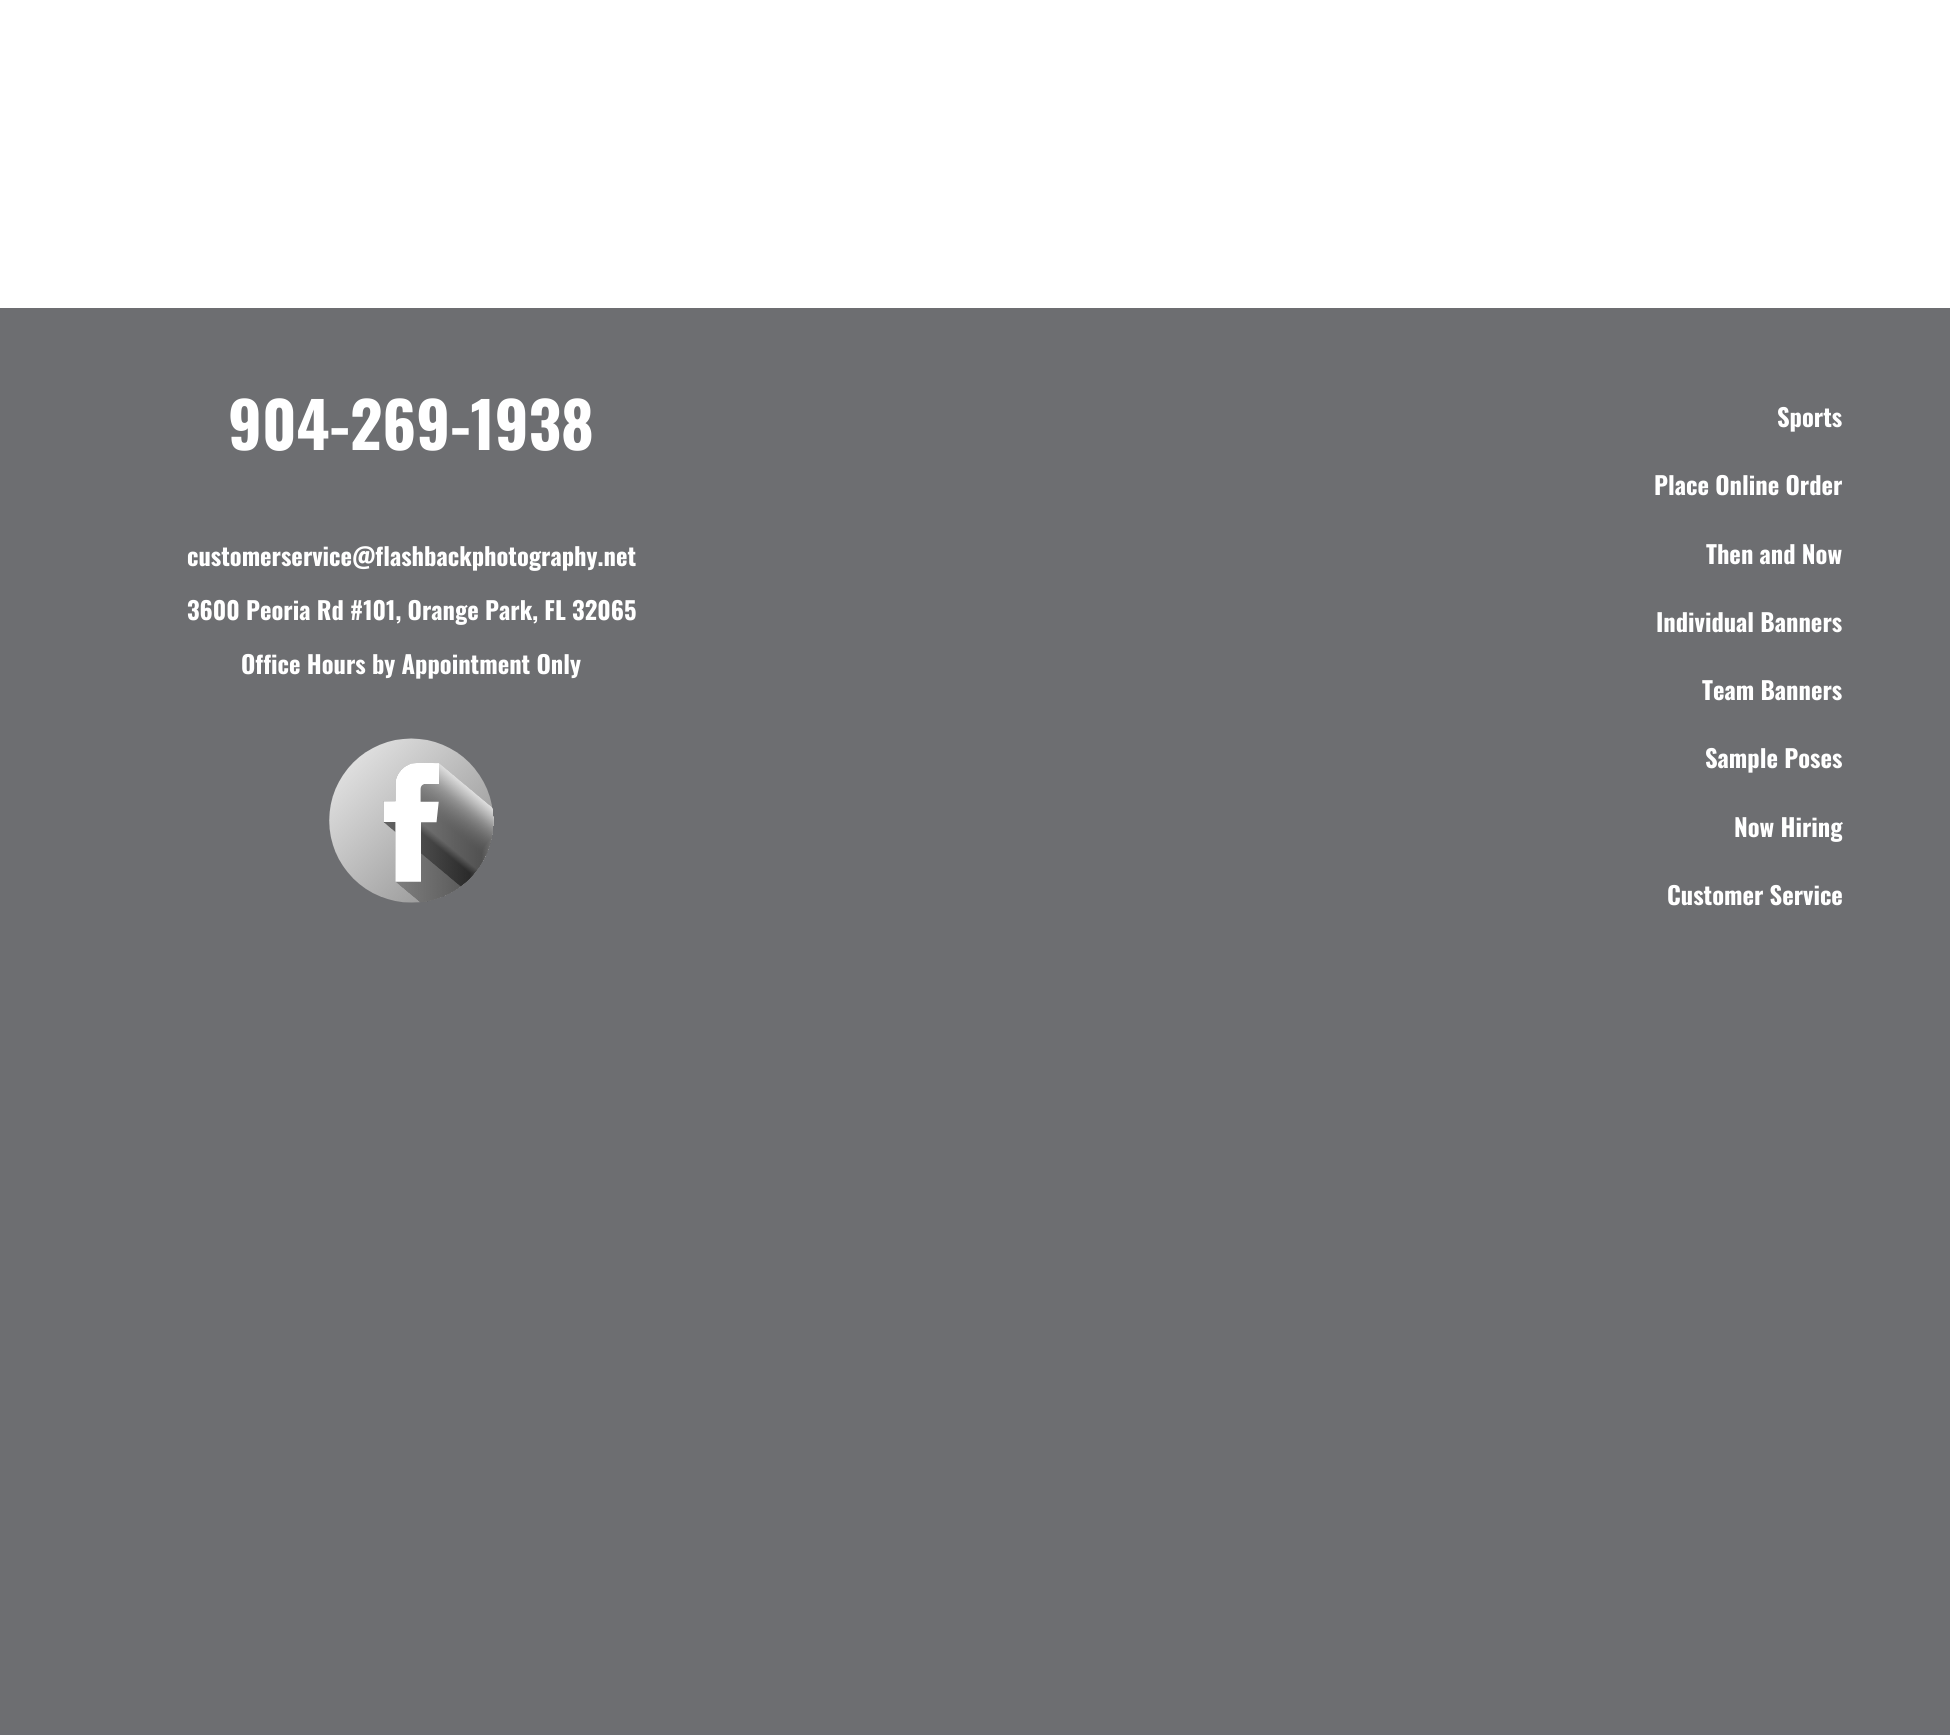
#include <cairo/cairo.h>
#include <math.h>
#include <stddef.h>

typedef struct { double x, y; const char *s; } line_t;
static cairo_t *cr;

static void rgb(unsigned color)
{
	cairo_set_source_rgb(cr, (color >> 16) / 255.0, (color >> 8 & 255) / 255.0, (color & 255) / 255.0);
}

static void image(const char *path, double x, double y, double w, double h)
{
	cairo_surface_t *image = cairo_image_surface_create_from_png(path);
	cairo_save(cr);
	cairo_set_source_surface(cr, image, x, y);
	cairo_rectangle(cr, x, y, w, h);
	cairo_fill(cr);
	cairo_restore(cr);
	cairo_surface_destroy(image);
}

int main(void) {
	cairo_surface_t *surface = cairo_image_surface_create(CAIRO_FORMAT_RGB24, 1950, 1735);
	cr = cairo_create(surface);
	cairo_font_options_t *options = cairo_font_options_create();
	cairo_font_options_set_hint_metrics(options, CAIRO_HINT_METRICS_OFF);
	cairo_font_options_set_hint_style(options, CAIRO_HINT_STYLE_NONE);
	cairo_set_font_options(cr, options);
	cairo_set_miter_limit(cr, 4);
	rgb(0xffffff);
	cairo_paint(cr);
	rgb(0x6d6e71);
	cairo_rectangle(cr, 0, 308, 1950, 1427);
	cairo_fill(cr);
	image("img/1.png", 329, 738, 165, 165);
	cairo_select_font_face(cr, "Oswald", CAIRO_FONT_SLANT_NORMAL, CAIRO_FONT_WEIGHT_BOLD);
	cairo_set_font_size(cr, 63);
	rgb(0xffffff);
	cairo_move_to(cr, 228, 450);
	cairo_show_text(cr, "904-269-1938");
	cairo_set_font_size(cr, 24.5);
	{
		static const line_t items[] = {
			{187, 566, "customerservice@flashbackphotography.net"},
			{187, 620, "3600 Peoria Rd #101, Orange Park, FL 32065"},
			{241, 674, "Office Hours by Appointment Only"},
			{1777, 427, "Sports"},
			{1654, 495, "Place Online Order"},
			{1706, 564, "Then and Now"},
			{1656, 632, "Individual Banners"},
			{1702, 700, "Team Banners"},
			{1705, 768, "Sample Poses"},
			{1734, 837, "Now Hiring"},
			{1667, 905, "Customer Service"},
		};
		for (size_t i = 0; i < sizeof items / sizeof *items; i++) {
			cairo_move_to(cr, items[i].x, items[i].y);
			cairo_show_text(cr, items[i].s);
		}
	}
	cairo_surface_write_to_png(surface, "page.png");
	cairo_font_options_destroy(options);
	cairo_destroy(cr);
	cairo_surface_destroy(surface);
	return 0;
}
